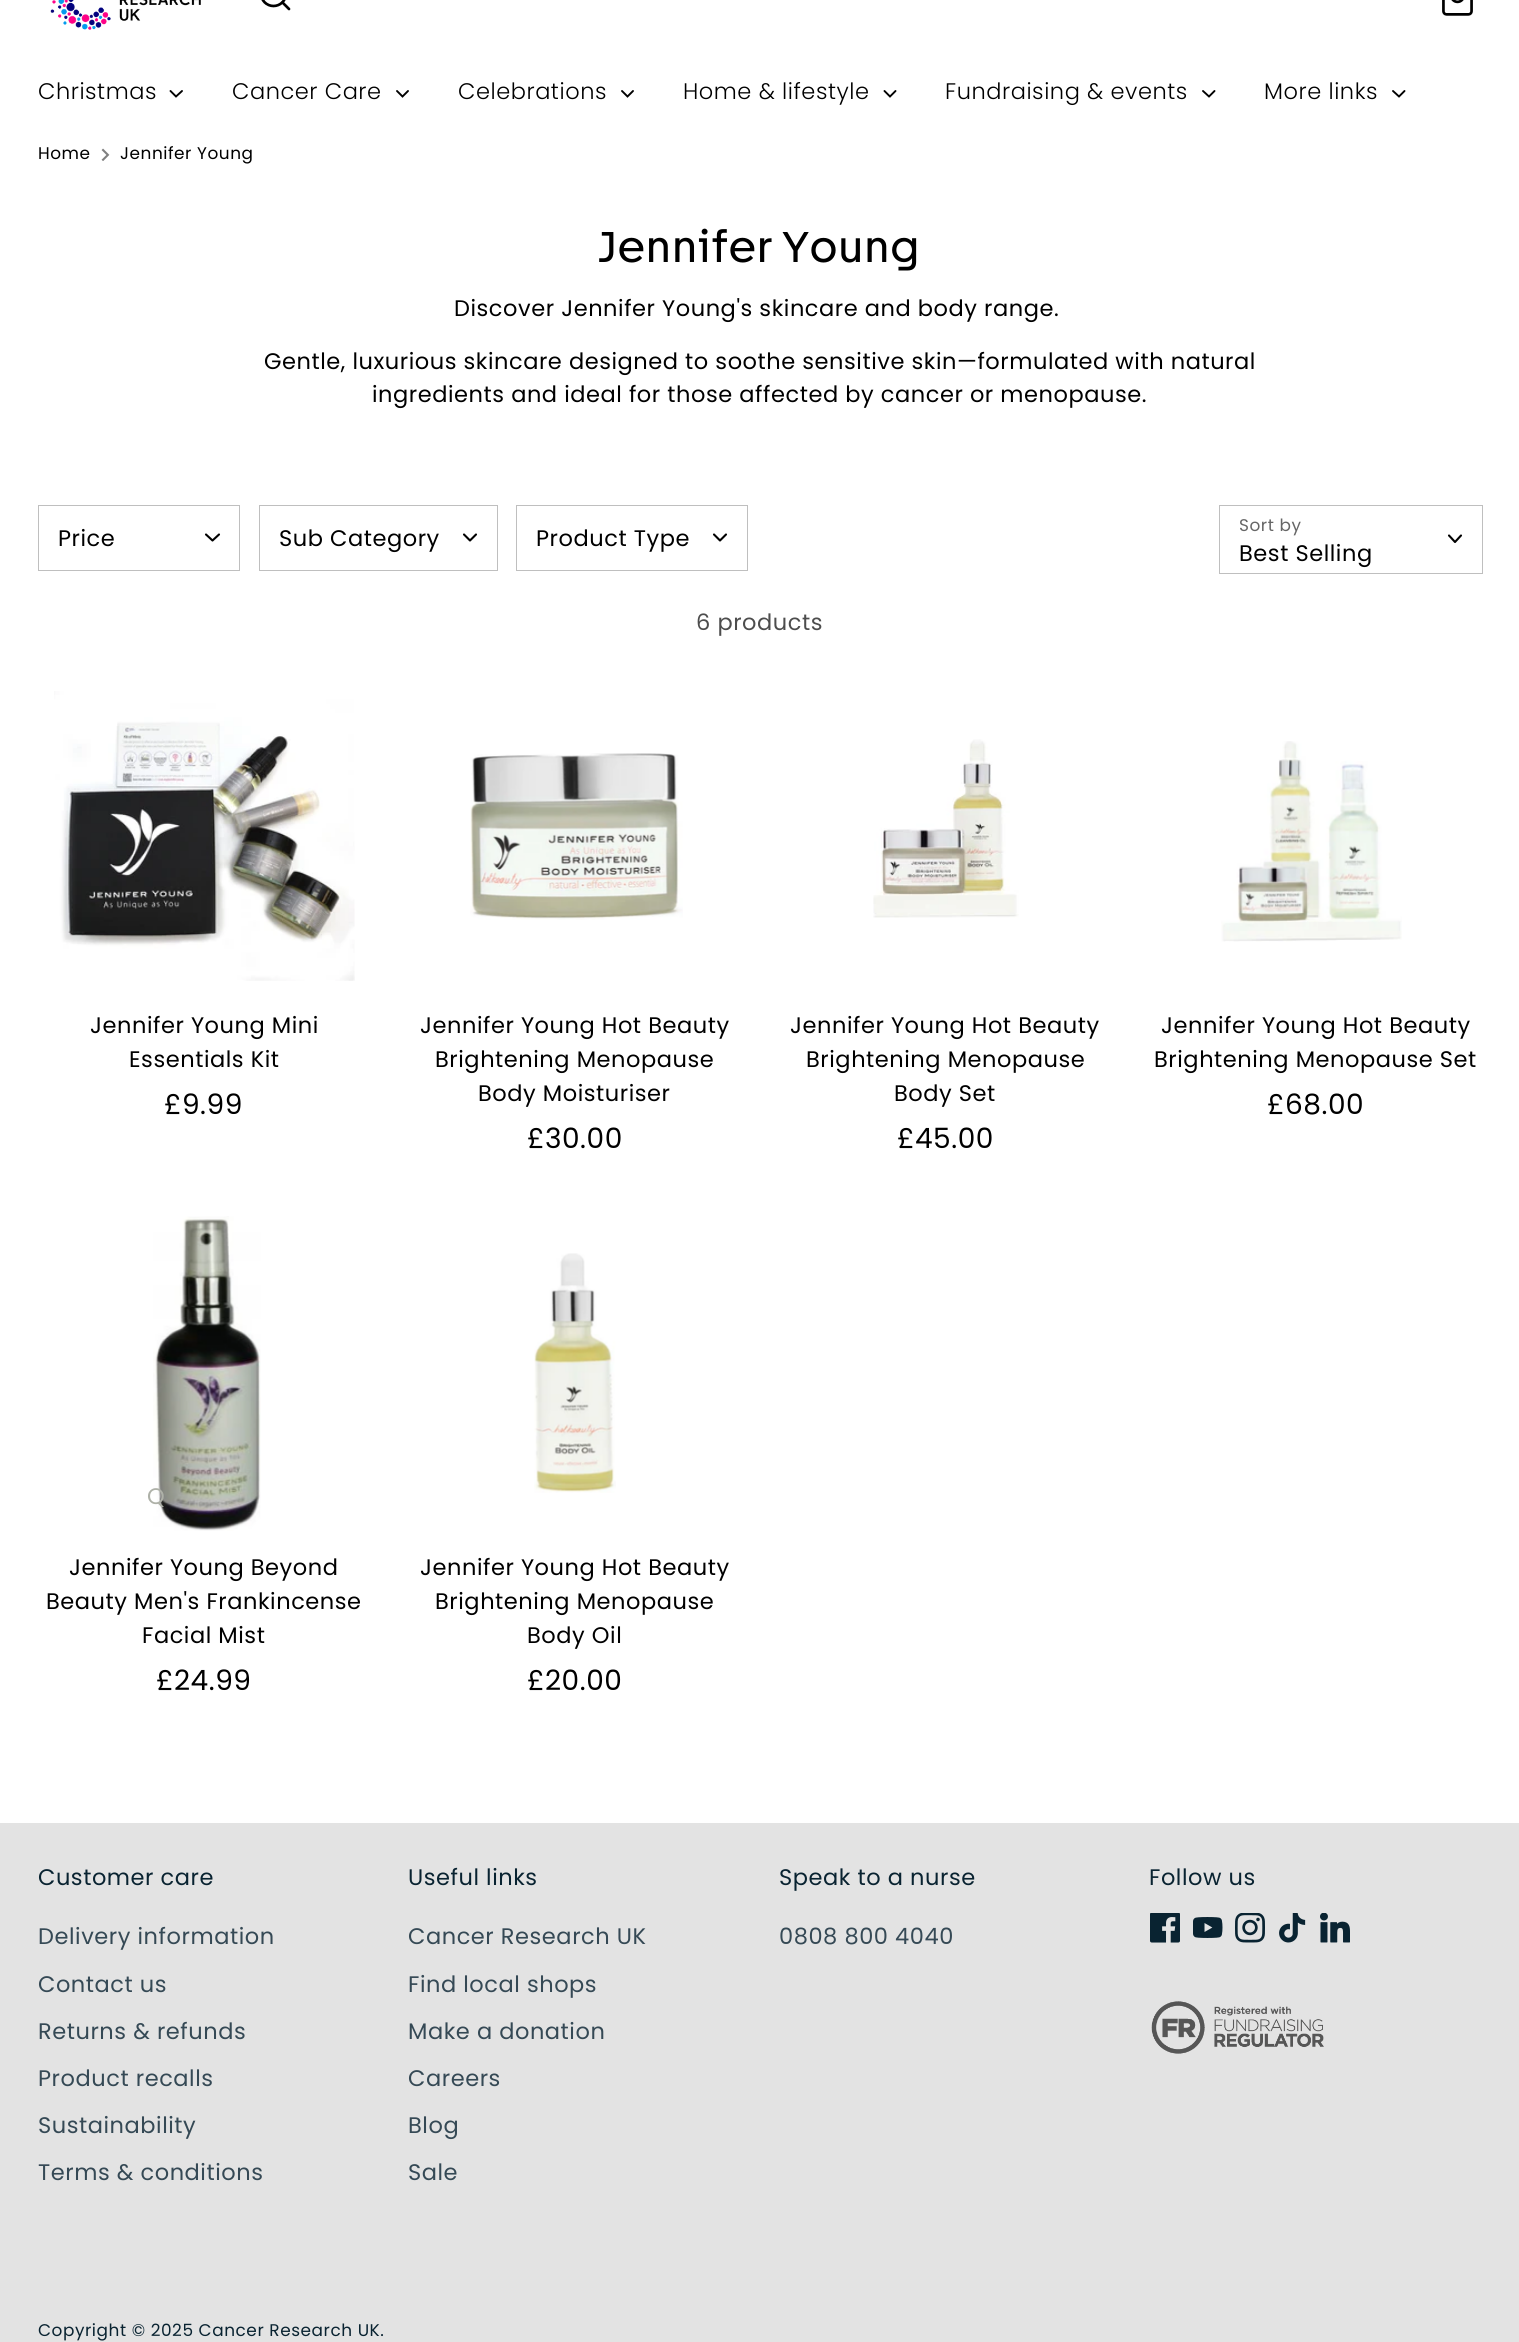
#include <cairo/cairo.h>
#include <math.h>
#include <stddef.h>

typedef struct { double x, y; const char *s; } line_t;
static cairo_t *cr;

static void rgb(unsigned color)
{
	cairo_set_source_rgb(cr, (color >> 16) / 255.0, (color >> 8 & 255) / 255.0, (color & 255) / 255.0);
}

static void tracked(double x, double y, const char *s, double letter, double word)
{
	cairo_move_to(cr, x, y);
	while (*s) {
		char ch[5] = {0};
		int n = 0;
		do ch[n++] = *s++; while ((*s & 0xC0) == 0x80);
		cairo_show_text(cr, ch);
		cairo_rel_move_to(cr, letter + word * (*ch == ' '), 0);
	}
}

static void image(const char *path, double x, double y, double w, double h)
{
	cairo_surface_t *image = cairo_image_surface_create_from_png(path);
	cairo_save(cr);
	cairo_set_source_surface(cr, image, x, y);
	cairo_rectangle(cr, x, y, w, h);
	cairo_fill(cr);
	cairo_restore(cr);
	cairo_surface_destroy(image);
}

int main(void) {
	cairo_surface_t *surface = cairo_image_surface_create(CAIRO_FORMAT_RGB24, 1519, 2342);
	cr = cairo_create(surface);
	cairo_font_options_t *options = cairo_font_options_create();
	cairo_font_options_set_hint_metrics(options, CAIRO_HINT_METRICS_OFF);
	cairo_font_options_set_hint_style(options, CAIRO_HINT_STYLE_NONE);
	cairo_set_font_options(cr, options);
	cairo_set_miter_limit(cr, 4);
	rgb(0xffffff);
	cairo_paint(cr);
	image("img/1.png", 50, 0, 151, 30);
	cairo_arc(cr, 273.5, -6.5, 12.5, 0, 2 * M_PI);
	rgb(0x000000);
	cairo_set_line_width(cr, 2.7);
	cairo_stroke(cr);
	cairo_new_path(cr);
	cairo_move_to(cr, 289, 9);
	cairo_line_to(cr, 282.5, 2.5);
	cairo_set_line_cap(cr, CAIRO_LINE_CAP_ROUND);
	cairo_set_line_join(cr, CAIRO_LINE_JOIN_ROUND);
	cairo_stroke(cr);
	image("img/2.png", 1442, 0, 31, 16);
	cairo_new_path(cr);
	cairo_move_to(cr, 170.5, 91);
	cairo_line_to(cr, 176, 96.5);
	cairo_line_to(cr, 182, 91);
	cairo_set_line_width(cr, 1.9);
	cairo_set_line_join(cr, CAIRO_LINE_JOIN_MITER);
	cairo_stroke(cr);
	cairo_new_path(cr);
	cairo_move_to(cr, 397, 91);
	cairo_line_to(cr, 402.5, 96.5);
	cairo_line_to(cr, 408, 91);
	cairo_stroke(cr);
	cairo_new_path(cr);
	cairo_move_to(cr, 622, 91);
	cairo_line_to(cr, 627.5, 96.5);
	cairo_line_to(cr, 633, 91);
	cairo_stroke(cr);
	cairo_new_path(cr);
	cairo_move_to(cr, 884.5, 91);
	cairo_line_to(cr, 890, 96.5);
	cairo_line_to(cr, 895.5, 91);
	cairo_stroke(cr);
	cairo_new_path(cr);
	cairo_move_to(cr, 1203, 91);
	cairo_line_to(cr, 1209, 96.5);
	cairo_line_to(cr, 1214.5, 91);
	cairo_stroke(cr);
	cairo_new_path(cr);
	cairo_move_to(cr, 1393, 91);
	cairo_line_to(cr, 1399, 96.5);
	cairo_line_to(cr, 1404.5, 91);
	cairo_stroke(cr);
	image("img/3.png", 101, 148, 9, 13);
	cairo_rectangle(cr, 38.5, 505.5, 201, 65);
	rgb(0xbfbfbf);
	cairo_set_line_width(cr, 1);
	cairo_set_line_cap(cr, CAIRO_LINE_CAP_BUTT);
	cairo_stroke(cr);
	cairo_new_path(cr);
	cairo_move_to(cr, 206, 534.5);
	cairo_line_to(cr, 212.5, 540.5);
	cairo_line_to(cr, 219, 534.5);
	rgb(0x000000);
	cairo_set_line_width(cr, 2.1);
	cairo_set_line_cap(cr, CAIRO_LINE_CAP_ROUND);
	cairo_set_line_join(cr, CAIRO_LINE_JOIN_ROUND);
	cairo_stroke(cr);
	cairo_rectangle(cr, 259.5, 505.5, 238, 65);
	rgb(0xbfbfbf);
	cairo_set_line_width(cr, 1);
	cairo_set_line_cap(cr, CAIRO_LINE_CAP_BUTT);
	cairo_set_line_join(cr, CAIRO_LINE_JOIN_MITER);
	cairo_stroke(cr);
	cairo_new_path(cr);
	cairo_move_to(cr, 464, 534.5);
	cairo_line_to(cr, 470, 540.5);
	cairo_line_to(cr, 476, 534.5);
	rgb(0x000000);
	cairo_set_line_width(cr, 2.1);
	cairo_set_line_cap(cr, CAIRO_LINE_CAP_ROUND);
	cairo_set_line_join(cr, CAIRO_LINE_JOIN_ROUND);
	cairo_stroke(cr);
	cairo_rectangle(cr, 516.5, 505.5, 231, 65);
	rgb(0xbfbfbf);
	cairo_set_line_width(cr, 1);
	cairo_set_line_cap(cr, CAIRO_LINE_CAP_BUTT);
	cairo_set_line_join(cr, CAIRO_LINE_JOIN_MITER);
	cairo_stroke(cr);
	cairo_new_path(cr);
	cairo_move_to(cr, 714, 534.5);
	cairo_line_to(cr, 720, 540.5);
	cairo_line_to(cr, 726, 534.5);
	rgb(0x000000);
	cairo_set_line_width(cr, 2.1);
	cairo_set_line_cap(cr, CAIRO_LINE_CAP_ROUND);
	cairo_set_line_join(cr, CAIRO_LINE_JOIN_ROUND);
	cairo_stroke(cr);
	cairo_rectangle(cr, 1219.5, 505.5, 263, 68);
	rgb(0xbfbfbf);
	cairo_set_line_width(cr, 1);
	cairo_set_line_cap(cr, CAIRO_LINE_CAP_BUTT);
	cairo_set_line_join(cr, CAIRO_LINE_JOIN_MITER);
	cairo_stroke(cr);
	cairo_new_path(cr);
	cairo_move_to(cr, 1449, 535.5);
	cairo_line_to(cr, 1455, 542);
	cairo_line_to(cr, 1461, 535.5);
	rgb(0x000000);
	cairo_set_line_width(cr, 2.1);
	cairo_set_line_cap(cr, CAIRO_LINE_CAP_ROUND);
	cairo_set_line_join(cr, CAIRO_LINE_JOIN_ROUND);
	cairo_stroke(cr);
	image("img/4.png", 54, 691, 301, 290);
	image("img/5.png", 470, 753, 213, 167);
	image("img/6.png", 873, 739, 146, 179);
	image("img/7.png", 1221, 741, 181, 201);
	image("img/8.png", 153, 1216, 108, 315);
	image("img/9.png", 534, 1253, 82, 240);
	rgb(0xe3e3e3);
	cairo_rectangle(cr, 0, 1823, 1519, 519);
	cairo_fill(cr);
	image("img/10.png", 1150, 1913, 30, 30);
	image("img/11.png", 1193, 1917, 30, 21);
	image("img/12.png", 1235, 1913, 30, 30);
	image("img/13.png", 1279, 1913, 27, 30);
	image("img/14.png", 1320, 1913, 30, 30);
	image("img/15.png", 1151, 2001, 173, 53);
	cairo_select_font_face(cr, "Poppins Light", CAIRO_FONT_SLANT_NORMAL, CAIRO_FONT_WEIGHT_NORMAL);
	cairo_set_font_size(cr, 22.5);
	rgb(0x000000);
	{
		static const line_t items[] = {
			{38, 99, "Christmas"},
			{232, 99, "Cancer Care"},
			{458, 99, "Celebrations"},
			{683, 99, "Home & lifestyle"},
			{945, 99, "Fundraising & events"},
			{1264, 99, "More links"},
		};
		for (size_t i = 0; i < sizeof items / sizeof *items; i++) {
			tracked(items[i].x, items[i].y, items[i].s, 0.55, 0);
		}
	}
	cairo_select_font_face(cr, "Poppins", CAIRO_FONT_SLANT_NORMAL, CAIRO_FONT_WEIGHT_NORMAL);
	cairo_set_font_size(cr, 16.9);
	tracked(38, 159, "Home", 0.55, 0);
	tracked(120, 159, "Jennifer Young", 0.55, 0);
	cairo_select_font_face(cr, "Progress", CAIRO_FONT_SLANT_NORMAL, CAIRO_FONT_WEIGHT_NORMAL);
	cairo_set_font_size(cr, 42.5);
	tracked(598, 262, "Jennifer Young", 1, 0);
	cairo_select_font_face(cr, "Poppins", CAIRO_FONT_SLANT_NORMAL, CAIRO_FONT_WEIGHT_NORMAL);
	cairo_set_font_size(cr, 22.5);
	{
		static const line_t items[] = {
			{454, 316, "Discover Jennifer Young's skincare and body range."},
			{264, 369, "Gentle, luxurious skincare designed to soothe sensitive skin—formulated with natural"},
			{372, 402, "ingredients and ideal for those affected by cancer or menopause."},
			{58, 546, "Price"},
			{279, 546, "Sub Category"},
			{536, 546, "Product Type"},
		};
		for (size_t i = 0; i < sizeof items / sizeof *items; i++) {
			tracked(items[i].x, items[i].y, items[i].s, 0.55, 0);
		}
	}
	cairo_set_font_size(cr, 16.9);
	rgb(0x666666);
	tracked(1239, 531, "Sort by", 0.55, 0);
	cairo_set_font_size(cr, 22.5);
	rgb(0x000000);
	tracked(1239, 561, "Best Selling", 0.55, 0);
	rgb(0x4d4d4d);
	tracked(696, 630, "6 products", 0.55, 0);
	rgb(0x000000);
	tracked(90, 1033, "Jennifer Young Mini", 0.55, 0);
	tracked(129, 1067, "Essentials Kit", 0.55, 0);
	cairo_set_font_size(cr, 28);
	tracked(164, 1114, "£9.99", 0.55, 0);
	cairo_set_font_size(cr, 22.5);
	{
		static const line_t items[] = {
			{420, 1033, "Jennifer Young Hot Beauty"},
			{435, 1067, "Brightening Menopause"},
			{478, 1101, "Body Moisturiser"},
		};
		for (size_t i = 0; i < sizeof items / sizeof *items; i++) {
			tracked(items[i].x, items[i].y, items[i].s, 0.55, 0);
		}
	}
	cairo_set_font_size(cr, 28);
	tracked(527, 1148, "£30.00", 0.55, 0);
	cairo_set_font_size(cr, 22.5);
	{
		static const line_t items[] = {
			{790, 1033, "Jennifer Young Hot Beauty"},
			{806, 1067, "Brightening Menopause"},
			{894, 1101, "Body Set"},
		};
		for (size_t i = 0; i < sizeof items / sizeof *items; i++) {
			tracked(items[i].x, items[i].y, items[i].s, 0.55, 0);
		}
	}
	cairo_set_font_size(cr, 28);
	tracked(897, 1148, "£45.00", 0.55, 0);
	cairo_set_font_size(cr, 22.5);
	tracked(1161, 1033, "Jennifer Young Hot Beauty", 0.55, 0);
	tracked(1154, 1067, "Brightening Menopause Set", 0.55, 0);
	cairo_set_font_size(cr, 28);
	tracked(1267, 1114, "£68.00", 0.55, 0);
	cairo_set_font_size(cr, 22.5);
	rgb(0xaeb1a8);
	tracked(147, 1504, "Q", 0.55, 0);
	rgb(0x000000);
	{
		static const line_t items[] = {
			{69, 1575, "Jennifer Young Beyond"},
			{46, 1609, "Beauty Men's Frankincense"},
			{142, 1643, "Facial Mist"},
		};
		for (size_t i = 0; i < sizeof items / sizeof *items; i++) {
			tracked(items[i].x, items[i].y, items[i].s, 0.55, 0);
		}
	}
	cairo_set_font_size(cr, 28);
	tracked(156, 1690, "£24.99", 0.55, 0);
	cairo_set_font_size(cr, 22.5);
	{
		static const line_t items[] = {
			{420, 1575, "Jennifer Young Hot Beauty"},
			{435, 1609, "Brightening Menopause"},
			{527, 1643, "Body Oil"},
		};
		for (size_t i = 0; i < sizeof items / sizeof *items; i++) {
			tracked(items[i].x, items[i].y, items[i].s, 0.55, 0);
		}
	}
	cairo_set_font_size(cr, 28);
	tracked(527, 1690, "£20.00", 0.55, 0);
	cairo_set_font_size(cr, 22.5);
	rgb(0x092331);
	tracked(38, 1885, "Customer care", 0.55, 0);
	rgb(0x354955);
	{
		static const line_t items[] = {
			{38, 1944, "Delivery information"},
			{38, 1992, "Contact us"},
			{38, 2039, "Returns & refunds"},
			{38, 2086, "Product recalls"},
			{38, 2133, "Sustainability"},
			{38, 2180, "Terms & conditions"},
		};
		for (size_t i = 0; i < sizeof items / sizeof *items; i++) {
			tracked(items[i].x, items[i].y, items[i].s, 0.55, 0);
		}
	}
	rgb(0x092331);
	tracked(408, 1885, "Useful links", 0.55, 0);
	rgb(0x354955);
	{
		static const line_t items[] = {
			{408, 1944, "Cancer Research UK"},
			{408, 1992, "Find local shops"},
			{408, 2039, "Make a donation"},
			{408, 2086, "Careers"},
			{408, 2133, "Blog"},
			{408, 2180, "Sale"},
		};
		for (size_t i = 0; i < sizeof items / sizeof *items; i++) {
			tracked(items[i].x, items[i].y, items[i].s, 0.55, 0);
		}
	}
	rgb(0x092331);
	tracked(779, 1885, "Speak to a nurse", 0.55, 0);
	rgb(0x354955);
	tracked(779, 1944, "0808 800 4040", 0.55, 0);
	rgb(0x092331);
	tracked(1149, 1885, "Follow us", 0.55, 0);
	cairo_set_font_size(cr, 16.9);
	tracked(38, 2336, "Copyright © 2025 Cancer Research UK.", 0.55, 0);
	cairo_surface_write_to_png(surface, "page.png");
	cairo_font_options_destroy(options);
	cairo_destroy(cr);
	cairo_surface_destroy(surface);
	return 0;
}
